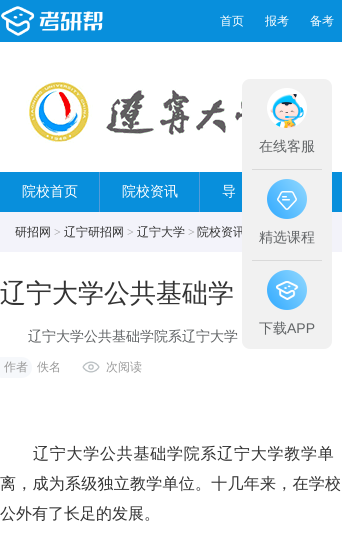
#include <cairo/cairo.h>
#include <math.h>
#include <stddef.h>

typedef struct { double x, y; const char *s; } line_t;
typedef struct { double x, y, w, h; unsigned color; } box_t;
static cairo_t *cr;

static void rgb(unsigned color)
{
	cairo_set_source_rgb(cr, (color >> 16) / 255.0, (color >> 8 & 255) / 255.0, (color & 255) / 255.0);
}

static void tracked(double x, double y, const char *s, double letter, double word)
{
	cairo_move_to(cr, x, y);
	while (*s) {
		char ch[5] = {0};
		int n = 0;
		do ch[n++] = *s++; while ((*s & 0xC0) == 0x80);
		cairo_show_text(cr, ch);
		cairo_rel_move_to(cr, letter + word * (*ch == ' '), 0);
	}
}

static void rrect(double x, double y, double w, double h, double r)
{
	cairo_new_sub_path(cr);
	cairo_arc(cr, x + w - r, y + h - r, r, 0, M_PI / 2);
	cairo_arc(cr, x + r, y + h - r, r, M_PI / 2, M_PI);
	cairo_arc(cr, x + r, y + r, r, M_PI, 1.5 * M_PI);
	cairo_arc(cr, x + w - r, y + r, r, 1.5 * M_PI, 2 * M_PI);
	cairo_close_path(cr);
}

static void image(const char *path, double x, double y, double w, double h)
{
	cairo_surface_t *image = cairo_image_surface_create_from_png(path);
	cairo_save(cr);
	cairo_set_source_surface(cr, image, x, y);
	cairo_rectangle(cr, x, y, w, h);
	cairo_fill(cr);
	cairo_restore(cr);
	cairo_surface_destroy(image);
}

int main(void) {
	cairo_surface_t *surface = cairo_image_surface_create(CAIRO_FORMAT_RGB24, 342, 535);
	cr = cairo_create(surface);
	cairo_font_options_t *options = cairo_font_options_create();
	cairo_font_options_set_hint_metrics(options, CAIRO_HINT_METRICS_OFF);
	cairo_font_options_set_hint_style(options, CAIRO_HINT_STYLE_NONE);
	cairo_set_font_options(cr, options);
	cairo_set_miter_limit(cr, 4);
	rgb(0xffffff);
	cairo_paint(cr);
	rgb(0x088fdc);
	cairo_rectangle(cr, 0, 0, 342, 42);
	cairo_fill(cr);
	image("img/1.png", 1, 6, 102, 30);
	image("img/2.png", 26, 82, 216, 61);
	{
		static const box_t items[] = {
			{0, 172, 99, 40, 0x088fdc},
			{100, 172, 99, 40, 0x088fdc},
			{99, 172, 1, 40, 0x539bd9},
			{200, 172, 42, 40, 0x088fdc},
			{199, 172, 1, 40, 0x539bd9},
			{332, 172, 10, 40, 0x088fdc},
			{0, 212, 342, 40, 0xf3f3fa},
		};
		for (size_t i = 0; i < sizeof items / sizeof *items; i++) {
			rgb(items[i].color);
			cairo_rectangle(cr, items[i].x, items[i].y, items[i].w, items[i].h);
			cairo_fill(cr);
		}
	}
	rgb(0xf6f8fb);
	cairo_new_path(cr);
	cairo_move_to(cr, 0, 357);
	cairo_line_to(cr, 21.5, 357);
	cairo_curve_to(cr, 27.5, 357, 32, 361.5, 32, 367.5);
	cairo_curve_to(cr, 32, 373.5, 27.5, 378, 21.5, 378);
	cairo_line_to(cr, 1, 378);
	cairo_curve_to(cr, 0.5, 378, 0, 377.5, 0, 377);
	cairo_close_path(cr);
	cairo_fill(cr);
	image("img/6.png", 82, 361, 18, 12);
	cairo_select_font_face(cr, "WenQuanYi Zen Hei Medium", CAIRO_FONT_SLANT_NORMAL, CAIRO_FONT_WEIGHT_NORMAL);
	cairo_set_font_size(cr, 12);
	rgb(0xffffff);
	{
		static const line_t items[] = {
			{220, 25, "首页"},
			{265, 25, "报考"},
			{310, 25, "备考"},
		};
		for (size_t i = 0; i < sizeof items / sizeof *items; i++) {
			cairo_move_to(cr, items[i].x, items[i].y);
			cairo_show_text(cr, items[i].s);
		}
	}
	cairo_set_font_size(cr, 14);
	{
		static const line_t items[] = {
			{22, 196, "院校首页"},
			{122, 196, "院校资讯"},
			{222, 196, "导"},
		};
		for (size_t i = 0; i < sizeof items / sizeof *items; i++) {
			cairo_move_to(cr, items[i].x, items[i].y);
			cairo_show_text(cr, items[i].s);
		}
	}
	cairo_set_font_size(cr, 12);
	rgb(0x333333);
	cairo_move_to(cr, 15, 236);
	cairo_show_text(cr, "研招网");
	cairo_select_font_face(cr, "Liberation Serif", CAIRO_FONT_SLANT_NORMAL, CAIRO_FONT_WEIGHT_NORMAL);
	rgb(0x999999);
	cairo_move_to(cr, 54, 236);
	cairo_show_text(cr, ">");
	cairo_select_font_face(cr, "WenQuanYi Zen Hei Medium", CAIRO_FONT_SLANT_NORMAL, CAIRO_FONT_WEIGHT_NORMAL);
	rgb(0x333333);
	cairo_move_to(cr, 64, 236);
	cairo_show_text(cr, "辽宁研招网");
	cairo_select_font_face(cr, "Liberation Serif", CAIRO_FONT_SLANT_NORMAL, CAIRO_FONT_WEIGHT_NORMAL);
	rgb(0x999999);
	cairo_move_to(cr, 127, 236);
	cairo_show_text(cr, ">");
	cairo_select_font_face(cr, "WenQuanYi Zen Hei Medium", CAIRO_FONT_SLANT_NORMAL, CAIRO_FONT_WEIGHT_NORMAL);
	rgb(0x333333);
	cairo_move_to(cr, 137, 236);
	cairo_show_text(cr, "辽宁大学");
	cairo_select_font_face(cr, "Liberation Serif", CAIRO_FONT_SLANT_NORMAL, CAIRO_FONT_WEIGHT_NORMAL);
	rgb(0x999999);
	cairo_move_to(cr, 188, 236);
	cairo_show_text(cr, ">");
	cairo_select_font_face(cr, "WenQuanYi Zen Hei Medium", CAIRO_FONT_SLANT_NORMAL, CAIRO_FONT_WEIGHT_NORMAL);
	rgb(0x333333);
	cairo_move_to(cr, 197, 236);
	cairo_show_text(cr, "院校资讯");
	rgb(0xf1f1f1);
	rrect(242, 79, 90, 270, 8);
	cairo_fill(cr);
	cairo_set_font_size(cr, 14);
	rgb(0x616466);
	cairo_move_to(cr, 259, 151);
	cairo_show_text(cr, "在线客服");
	image("img/3.png", 267, 88, 40, 40);
	rgb(0xd9d9d9);
	cairo_rectangle(cr, 252, 169, 70, 1);
	cairo_fill(cr);
	cairo_select_font_face(cr, "Liberation Sans", CAIRO_FONT_SLANT_NORMAL, CAIRO_FONT_WEIGHT_NORMAL);
	rgb(0x616466);
	cairo_move_to(cr, 287, 333);
	cairo_show_text(cr, "APP");
	cairo_select_font_face(cr, "WenQuanYi Zen Hei Medium", CAIRO_FONT_SLANT_NORMAL, CAIRO_FONT_WEIGHT_NORMAL);
	cairo_move_to(cr, 259, 333);
	cairo_show_text(cr, "下载");
	image("img/5.png", 267, 270, 40, 40);
	cairo_move_to(cr, 259, 242);
	cairo_show_text(cr, "精选课程");
	image("img/4.png", 267, 179, 40, 40);
	rgb(0xd9d9d9);
	cairo_rectangle(cr, 252, 260, 70, 1);
	cairo_fill(cr);
	cairo_set_font_size(cr, 26);
	rgb(0x333333);
	cairo_move_to(cr, 0, 302);
	cairo_show_text(cr, "辽宁大学公共基础学");
	cairo_set_font_size(cr, 14);
	rgb(0x616466);
	cairo_move_to(cr, 28, 341);
	cairo_show_text(cr, "辽宁大学公共基础学院系辽宁大学");
	cairo_set_font_size(cr, 12);
	rgb(0x999999);
	{
		static const line_t items[] = {
			{4, 371, "作者"},
			{37, 371, "佚名"},
			{106, 371, "次阅读"},
		};
		for (size_t i = 0; i < sizeof items / sizeof *items; i++) {
			cairo_move_to(cr, items[i].x, items[i].y);
			cairo_show_text(cr, items[i].s);
		}
	}
	cairo_set_font_size(cr, 16);
	rgb(0x333333);
	tracked(33, 459, "辽宁大学公共基础学院系辽宁大学教学单", 0.75, 0);
	tracked(0, 489, "离，成为系级独立教学单位。十几年来，在学校", 0.25, 0);
	cairo_move_to(cr, 0, 519);
	cairo_show_text(cr, "公外有了长足的发展。");
	cairo_surface_write_to_png(surface, "page.png");
	cairo_font_options_destroy(options);
	cairo_destroy(cr);
	cairo_surface_destroy(surface);
	return 0;
}
